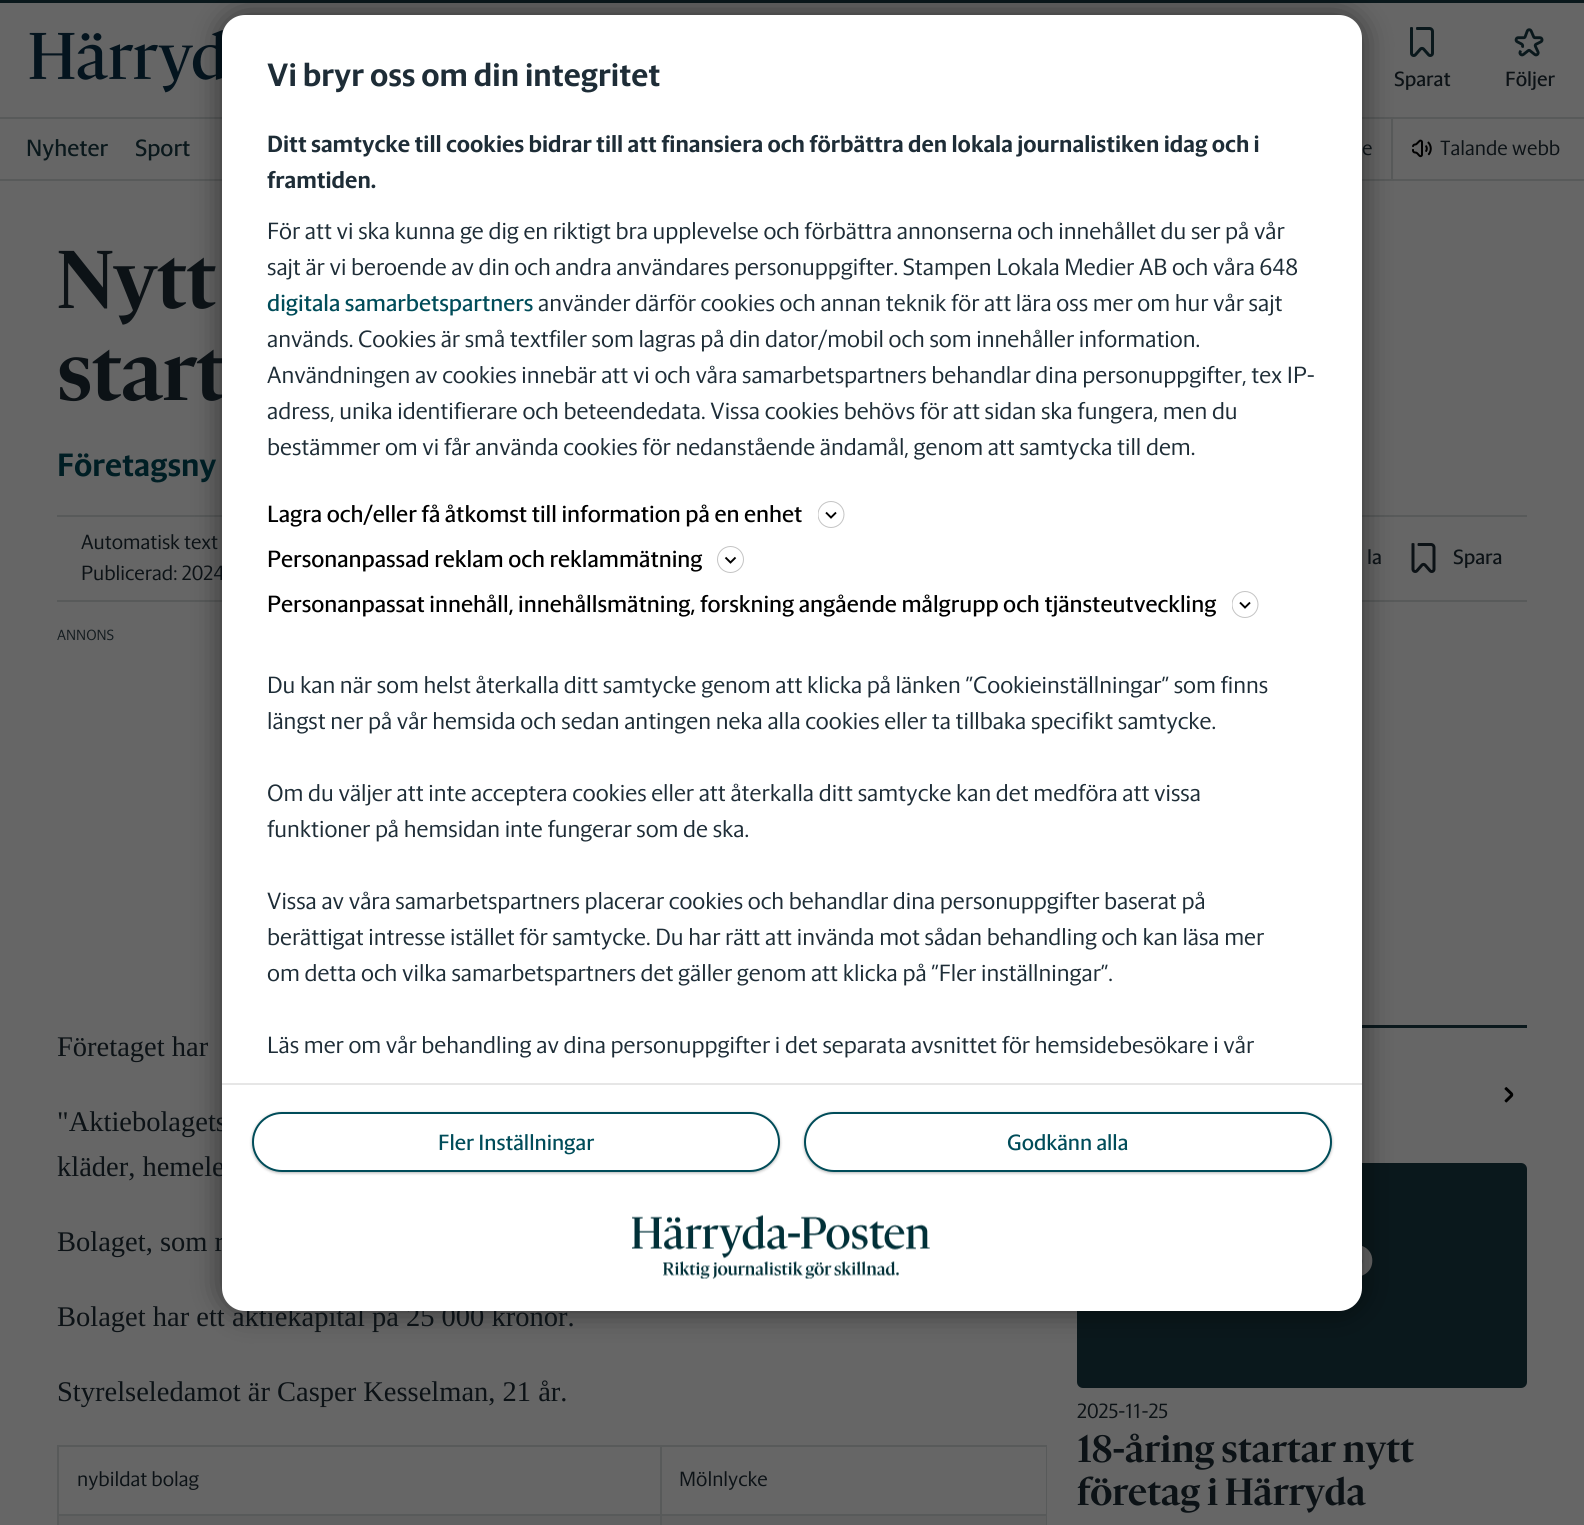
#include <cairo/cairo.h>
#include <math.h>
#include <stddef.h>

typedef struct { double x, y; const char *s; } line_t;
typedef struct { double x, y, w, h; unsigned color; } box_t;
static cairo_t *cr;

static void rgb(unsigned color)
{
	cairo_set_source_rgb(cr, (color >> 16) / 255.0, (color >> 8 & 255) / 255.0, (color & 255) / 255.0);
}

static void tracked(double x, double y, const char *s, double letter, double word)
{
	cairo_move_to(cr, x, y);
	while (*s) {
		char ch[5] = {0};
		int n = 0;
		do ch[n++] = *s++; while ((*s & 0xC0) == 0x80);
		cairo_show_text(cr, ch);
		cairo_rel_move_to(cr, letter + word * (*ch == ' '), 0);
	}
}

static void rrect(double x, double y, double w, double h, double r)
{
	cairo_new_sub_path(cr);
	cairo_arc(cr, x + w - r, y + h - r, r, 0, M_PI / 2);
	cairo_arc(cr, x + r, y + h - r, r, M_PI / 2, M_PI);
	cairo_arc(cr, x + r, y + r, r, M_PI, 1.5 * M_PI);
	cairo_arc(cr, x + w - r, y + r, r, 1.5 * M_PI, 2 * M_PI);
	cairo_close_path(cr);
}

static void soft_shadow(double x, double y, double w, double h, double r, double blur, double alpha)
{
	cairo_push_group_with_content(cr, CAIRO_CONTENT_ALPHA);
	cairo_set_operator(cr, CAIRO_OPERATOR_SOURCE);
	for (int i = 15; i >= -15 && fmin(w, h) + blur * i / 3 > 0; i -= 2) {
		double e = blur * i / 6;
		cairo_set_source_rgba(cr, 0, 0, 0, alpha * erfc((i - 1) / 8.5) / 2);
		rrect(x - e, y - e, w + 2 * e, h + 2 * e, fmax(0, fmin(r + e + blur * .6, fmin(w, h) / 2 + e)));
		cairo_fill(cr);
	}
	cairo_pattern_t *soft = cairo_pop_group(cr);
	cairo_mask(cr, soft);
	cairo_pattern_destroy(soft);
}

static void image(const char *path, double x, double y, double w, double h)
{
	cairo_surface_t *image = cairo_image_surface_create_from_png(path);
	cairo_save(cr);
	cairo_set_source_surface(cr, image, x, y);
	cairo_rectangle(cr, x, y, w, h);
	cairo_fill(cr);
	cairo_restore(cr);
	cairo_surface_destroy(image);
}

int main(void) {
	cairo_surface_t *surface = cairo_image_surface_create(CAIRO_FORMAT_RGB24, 1584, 1525);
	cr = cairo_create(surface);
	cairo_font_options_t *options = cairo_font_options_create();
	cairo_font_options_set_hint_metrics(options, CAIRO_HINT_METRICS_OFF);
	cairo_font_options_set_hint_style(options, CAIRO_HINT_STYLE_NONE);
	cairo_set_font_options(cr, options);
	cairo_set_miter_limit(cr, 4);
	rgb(0x666666);
	cairo_paint(cr);
	rgb(0x0a181c);
	cairo_rectangle(cr, 0, 0, 1584, 3);
	cairo_fill(cr);
	rgb(0x585a5a);
	cairo_rectangle(cr, 0, 179, 1584, 2);
	cairo_fill(cr);
	image("img/2.png", 29, 30, 194, 63);
	{
		static const box_t items[] = {
			{0, 117, 1584, 2, 0x585a5a},
			{1391, 119, 2, 60, 0x585a5a},
			{57, 515, 1470, 2, 0x585a5a},
			{57, 600, 1470, 2, 0x585a5a},
			{1362, 1025, 165, 3, 0x0a181c},
		};
		for (size_t i = 0; i < sizeof items / sizeof *items; i++) {
			rgb(items[i].color);
			cairo_rectangle(cr, items[i].x, items[i].y, items[i].w, items[i].h);
			cairo_fill(cr);
		}
	}
	rrect(1077, 1163, 450, 225, 6);
	cairo_fill(cr);
	image("img/8.png", 1362, 1246, 11, 30);
	rgb(0x000000);
	soft_shadow(222, 15, 1140, 1296, 23, 15, 0.5);
	image("img/3.png", 1410, 27, 24, 30);
	image("img/4.png", 1514, 28, 30, 29);
	image("img/5.png", 1412, 139, 20, 19);
	image("img/6.png", 1411, 543, 25, 30);
	{
		static const box_t items[] = {
			{57, 1445, 990, 2, 0x585a5a},
			{57, 1445, 2, 80, 0x585a5a},
			{59, 1516, 987, 9, 0x616161},
			{57, 1514, 990, 2, 0x585a5a},
			{660, 1445, 2, 80, 0x585a5a},
			{1046, 1445, 1, 80, 0x585a5a},
		};
		for (size_t i = 0; i < sizeof items / sizeof *items; i++) {
			rgb(items[i].color);
			cairo_rectangle(cr, items[i].x, items[i].y, items[i].w, items[i].h);
			cairo_fill(cr);
		}
	}
	image("img/7.png", 1504, 1087, 10, 16);
	cairo_select_font_face(cr, "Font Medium", CAIRO_FONT_SLANT_NORMAL, CAIRO_FONT_WEIGHT_NORMAL);
	cairo_set_font_size(cr, 21);
	rgb(0x0c1216);
	cairo_move_to(cr, 1394, 86);
	cairo_show_text(cr, "Sparat");
	cairo_move_to(cr, 1505, 86);
	cairo_show_text(cr, "Följer");
	cairo_set_font_size(cr, 24);
	rgb(0x0a181c);
	cairo_move_to(cr, 26, 156);
	cairo_show_text(cr, "Nyheter");
	cairo_move_to(cr, 135, 156);
	cairo_show_text(cr, "Sport");
	cairo_select_font_face(cr, "Font Light", CAIRO_FONT_SLANT_NORMAL, CAIRO_FONT_WEIGHT_NORMAL);
	cairo_set_font_size(cr, 21);
	rgb(0x0c1216);
	cairo_move_to(cr, 1362, 155);
	cairo_show_text(cr, "e");
	cairo_move_to(cr, 1440, 155);
	cairo_show_text(cr, "Talande webb");
	cairo_select_font_face(cr, "Font", CAIRO_FONT_SLANT_NORMAL, CAIRO_FONT_WEIGHT_BOLD);
	cairo_set_font_size(cr, 84);
	tracked(57, 308, "Nytt", -0.5, 0);
	tracked(57, 400, "start", -0.5, 0);
	cairo_select_font_face(cr, "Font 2", CAIRO_FONT_SLANT_NORMAL, CAIRO_FONT_WEIGHT_BOLD);
	cairo_set_font_size(cr, 33);
	rgb(0x001e24);
	cairo_move_to(cr, 57, 476);
	cairo_show_text(cr, "Företagsny");
	cairo_select_font_face(cr, "Font Light", CAIRO_FONT_SLANT_NORMAL, CAIRO_FONT_WEIGHT_NORMAL);
	cairo_set_font_size(cr, 21);
	rgb(0x0c1216);
	cairo_move_to(cr, 81, 549);
	cairo_show_text(cr, "Automatisk text");
	cairo_move_to(cr, 81, 580);
	cairo_show_text(cr, "Publicerad: 2024");
	cairo_select_font_face(cr, "Font Medium", CAIRO_FONT_SLANT_NORMAL, CAIRO_FONT_WEIGHT_NORMAL);
	cairo_move_to(cr, 1367, 564);
	cairo_show_text(cr, "la");
	cairo_move_to(cr, 1453, 564);
	cairo_show_text(cr, "Spara");
	cairo_select_font_face(cr, "Font Light", CAIRO_FONT_SLANT_NORMAL, CAIRO_FONT_WEIGHT_NORMAL);
	cairo_set_font_size(cr, 15);
	rgb(0x141c20);
	cairo_move_to(cr, 57, 640);
	cairo_show_text(cr, "ANNONS");
	cairo_select_font_face(cr, "Liberation Serif", CAIRO_FONT_SLANT_NORMAL, CAIRO_FONT_WEIGHT_NORMAL);
	cairo_set_font_size(cr, 28.5);
	rgb(0x0c1216);
	{
		static const line_t items[] = {
			{57, 1056, "Företaget har"},
			{57, 1131, "\"Aktiebolagets"},
			{57, 1176, "kläder, hemele"},
			{57, 1251, "Bolaget, som r"},
			{57, 1326, "Bolaget har ett aktiekapital på 25 000 kronor."},
		};
		for (size_t i = 0; i < sizeof items / sizeof *items; i++) {
			cairo_move_to(cr, items[i].x, items[i].y);
			cairo_show_text(cr, items[i].s);
		}
	}
	rgb(0xffffff);
	rrect(222, 15, 1140, 1296, 23);
	cairo_fill(cr);
	cairo_new_path(cr);
	cairo_move_to(cr, 1240, 602.5);
	cairo_line_to(cr, 1245, 607.5);
	cairo_line_to(cr, 1250, 602.5);
	rgb(0x000000);
	cairo_set_line_width(cr, 1.9);
	cairo_stroke(cr);
	cairo_save(cr);
	cairo_rectangle(cr, 1232, 591, 27, 27);
	cairo_clip(cr);
	cairo_arc(cr, 1245, 604.5, 13, 0, 2 * M_PI);
	rgb(0xc4c4c4);
	cairo_set_line_width(cr, 1);
	cairo_stroke(cr);
	cairo_restore(cr);
	cairo_new_path(cr);
	cairo_move_to(cr, 725.5, 557.5);
	cairo_line_to(cr, 730.5, 562.5);
	cairo_line_to(cr, 735.5, 557.5);
	cairo_stroke(cr);
	cairo_arc(cr, 730.5, 559.5, 13, 0, 2 * M_PI);
	rgb(0xc4c4c4);
	cairo_set_line_width(cr, 1);
	cairo_stroke(cr);
	cairo_new_path(cr);
	cairo_move_to(cr, 826, 512.5);
	cairo_line_to(cr, 831, 517.5);
	cairo_line_to(cr, 836, 512.5);
	rgb(0x000000);
	cairo_set_line_width(cr, 1.9);
	cairo_stroke(cr);
	cairo_save(cr);
	cairo_rectangle(cr, 818, 501, 27, 27);
	cairo_clip(cr);
	cairo_arc(cr, 831, 514.5, 13, 0, 2 * M_PI);
	rgb(0xc4c4c4);
	cairo_set_line_width(cr, 1);
	cairo_stroke(cr);
	cairo_restore(cr);
	cairo_select_font_face(cr, "Font Medium", CAIRO_FONT_SLANT_NORMAL, CAIRO_FONT_WEIGHT_NORMAL);
	cairo_set_font_size(cr, 24);
	{
		static const line_t items[] = {
			{267, 612, "Personanpassat innehåll, innehållsmätning, forskning angående målgrupp och tjänsteutveckling"},
			{267, 567, "Personanpassad reklam och reklammätning"},
			{267, 522, "Lagra och/eller få åtkomst till information på en enhet"},
		};
		for (size_t i = 0; i < sizeof items / sizeof *items; i++) {
			cairo_move_to(cr, items[i].x, items[i].y);
			cairo_show_text(cr, items[i].s);
		}
	}
	cairo_select_font_face(cr, "Font Light", CAIRO_FONT_SLANT_NORMAL, CAIRO_FONT_WEIGHT_NORMAL);
	rgb(0x1e2d37);
	{
		static const line_t items[] = {
			{267, 1053, "Läs mer om vår behandling av dina personuppgifter i det separata avsnittet för hemsidebesökare i vår"},
			{267, 981, "om detta och vilka samarbetspartners det gäller genom att klicka på \"Fler inställningar\"."},
			{267, 945, "berättigat intresse istället för samtycke. Du har rätt att invända mot sådan behandling och kan läsa mer"},
			{267, 909, "Vissa av våra samarbetspartners placerar cookies och behandlar dina personuppgifter baserat på"},
			{267, 837, "funktioner på hemsidan inte fungerar som de ska."},
			{267, 801, "Om du väljer att inte acceptera cookies eller att återkalla ditt samtycke kan det medföra att vissa"},
			{267, 729, "längst ner på vår hemsida och sedan antingen neka alla cookies eller ta tillbaka specifikt samtycke."},
			{267, 693, "Du kan när som helst återkalla ditt samtycke genom att klicka på länken \"Cookieinställningar\" som finns"},
			{267, 455, "bestämmer om vi får använda cookies för nedanstående ändamål, genom att samtycka till dem."},
			{267, 419, "adress, unika identifierare och beteendedata. Vissa cookies behövs för att sidan ska fungera, men du"},
			{267, 383, "Användningen av cookies innebär att vi och våra samarbetspartners behandlar dina personuppgifter, tex IP-"},
			{267, 347, "används. Cookies är små textfiler som lagras på din dator/mobil och som innehåller information."},
			{538, 311, "använder därför cookies och annan teknik för att lära oss mer om hur vår sajt"},
		};
		for (size_t i = 0; i < sizeof items / sizeof *items; i++) {
			cairo_move_to(cr, items[i].x, items[i].y);
			cairo_show_text(cr, items[i].s);
		}
	}
	cairo_select_font_face(cr, "Font Medium", CAIRO_FONT_SLANT_NORMAL, CAIRO_FONT_WEIGHT_NORMAL);
	rgb(0x004c59);
	cairo_move_to(cr, 267, 311);
	cairo_show_text(cr, "digitala samarbetspartners");
	cairo_select_font_face(cr, "Font Light", CAIRO_FONT_SLANT_NORMAL, CAIRO_FONT_WEIGHT_NORMAL);
	rgb(0x1e2d37);
	cairo_move_to(cr, 267, 275);
	cairo_show_text(cr, "sajt är vi beroende av din och andra användares personuppgifter. Stampen Lokala Medier AB och våra 648");
	cairo_move_to(cr, 267, 239);
	cairo_show_text(cr, "För att vi ska kunna ge dig en riktigt bra upplevelse och förbättra annonserna och innehållet du ser på vår");
	cairo_select_font_face(cr, "Font 2", CAIRO_FONT_SLANT_NORMAL, CAIRO_FONT_WEIGHT_BOLD);
	cairo_move_to(cr, 267, 188);
	cairo_show_text(cr, "framtiden.");
	cairo_move_to(cr, 267, 152);
	cairo_show_text(cr, "Ditt samtycke till cookies bidrar till att finansiera och förbättra den lokala journalistiken idag och i");
	cairo_set_font_size(cr, 33);
	cairo_move_to(cr, 267, 86);
	cairo_show_text(cr, "Vi bryr oss om din integritet");
	rgb(0x000000);
	soft_shadow(804, 1113, 528, 60, 30, 1.5, 0.3);
	rgb(0xffffff);
	rrect(805, 1113, 526, 58, 29);
	cairo_fill_preserve(cr);
	rgb(0x004c59);
	cairo_set_line_width(cr, 2);
	cairo_stroke(cr);
	cairo_select_font_face(cr, "Font Medium", CAIRO_FONT_SLANT_NORMAL, CAIRO_FONT_WEIGHT_NORMAL);
	cairo_set_font_size(cr, 22.5);
	cairo_move_to(cr, 1007, 1150);
	cairo_show_text(cr, "Godkänn alla");
	rgb(0x000000);
	soft_shadow(252, 1113, 528, 60, 30, 1.5, 0.3);
	rgb(0xffffff);
	rrect(253, 1113, 526, 58, 29);
	cairo_fill_preserve(cr);
	rgb(0x004c59);
	cairo_stroke(cr);
	cairo_move_to(cr, 438, 1150);
	cairo_show_text(cr, "Fler Inställningar");
	rgb(0xe6e6e6);
	cairo_rectangle(cr, 222, 1083, 1140, 2);
	cairo_fill(cr);
	image("img/1.png", 632, 1214, 298, 66);
	cairo_select_font_face(cr, "Liberation Serif", CAIRO_FONT_SLANT_NORMAL, CAIRO_FONT_WEIGHT_NORMAL);
	cairo_set_font_size(cr, 28.5);
	rgb(0x0c1216);
	cairo_move_to(cr, 57, 1401);
	cairo_show_text(cr, "Styrelseledamot är Casper Kesselman, 21 år.");
	cairo_select_font_face(cr, "Font Light", CAIRO_FONT_SLANT_NORMAL, CAIRO_FONT_WEIGHT_NORMAL);
	cairo_set_font_size(cr, 21);
	{
		static const line_t items[] = {
			{77, 1486, "nybildat bolag"},
			{679, 1486, "Mölnlycke"},
			{1077, 1418, "2025-11-25"},
		};
		for (size_t i = 0; i < sizeof items / sizeof *items; i++) {
			cairo_move_to(cr, items[i].x, items[i].y);
			cairo_show_text(cr, items[i].s);
		}
	}
	cairo_select_font_face(cr, "Font", CAIRO_FONT_SLANT_NORMAL, CAIRO_FONT_WEIGHT_BOLD);
	cairo_set_font_size(cr, 39);
	cairo_move_to(cr, 1077, 1462);
	cairo_show_text(cr, "18-åring startar nytt");
	cairo_move_to(cr, 1077, 1505);
	cairo_show_text(cr, "företag i Härryda");
	cairo_surface_write_to_png(surface, "page.png");
	cairo_font_options_destroy(options);
	cairo_destroy(cr);
	cairo_surface_destroy(surface);
	return 0;
}
